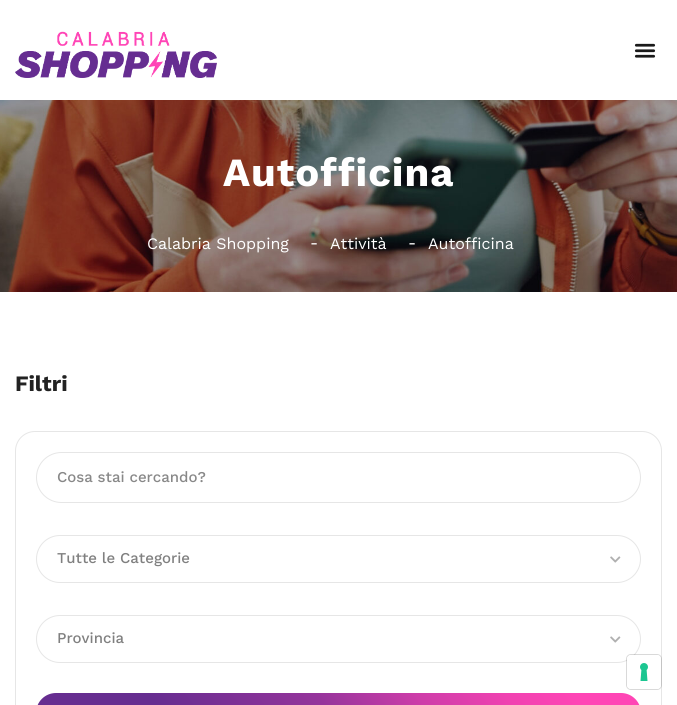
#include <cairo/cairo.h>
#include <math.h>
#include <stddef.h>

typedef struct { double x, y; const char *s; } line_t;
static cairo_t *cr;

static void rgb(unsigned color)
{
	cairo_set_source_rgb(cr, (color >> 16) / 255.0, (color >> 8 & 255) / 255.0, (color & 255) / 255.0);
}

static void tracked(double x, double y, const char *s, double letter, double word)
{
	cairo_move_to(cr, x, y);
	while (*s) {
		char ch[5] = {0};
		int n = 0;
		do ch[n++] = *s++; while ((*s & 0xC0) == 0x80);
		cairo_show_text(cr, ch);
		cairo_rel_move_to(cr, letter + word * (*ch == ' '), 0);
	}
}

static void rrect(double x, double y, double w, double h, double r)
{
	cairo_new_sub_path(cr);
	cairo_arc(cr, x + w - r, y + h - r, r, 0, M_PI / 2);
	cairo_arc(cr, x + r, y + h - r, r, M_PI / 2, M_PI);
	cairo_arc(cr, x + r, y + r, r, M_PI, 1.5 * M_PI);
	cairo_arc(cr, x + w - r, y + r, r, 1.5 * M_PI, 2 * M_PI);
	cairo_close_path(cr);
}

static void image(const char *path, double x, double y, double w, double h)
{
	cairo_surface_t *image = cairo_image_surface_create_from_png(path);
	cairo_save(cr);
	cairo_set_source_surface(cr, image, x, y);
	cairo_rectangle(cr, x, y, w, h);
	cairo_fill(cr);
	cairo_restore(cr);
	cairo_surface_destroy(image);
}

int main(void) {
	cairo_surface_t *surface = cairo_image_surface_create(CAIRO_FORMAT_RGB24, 677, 705);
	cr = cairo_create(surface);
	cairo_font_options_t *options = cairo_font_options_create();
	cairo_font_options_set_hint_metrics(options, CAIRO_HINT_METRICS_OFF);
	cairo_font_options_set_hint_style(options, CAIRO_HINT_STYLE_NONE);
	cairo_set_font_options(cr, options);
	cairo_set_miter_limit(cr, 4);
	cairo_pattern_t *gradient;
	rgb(0xffffff);
	cairo_paint(cr);
	image("img/1.png", 15, 31, 202, 47);
	image("img/2.png", 634, 43, 22, 15);
	image("img/3.png", 0, 100, 677, 192);
	rrect(15.5, 431.5, 646, 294, 19.5);
	rgb(0xe6e6e6);
	cairo_set_line_width(cr, 1);
	cairo_stroke(cr);
	rrect(36.5, 452.5, 604, 50, 25);
	cairo_stroke(cr);
	rrect(36.5, 535.5, 604, 47, 23.5);
	cairo_stroke(cr);
	image("img/4.png", 610, 556, 11, 7);
	rrect(36.5, 615.5, 604, 47, 23.5);
	cairo_stroke(cr);
	image("img/4.png", 610, 636, 11, 7);
	gradient = cairo_pattern_create_linear(150, 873, 527, 557);
	cairo_pattern_add_color_stop_rgba(gradient, 0.23, 0.4, 0.176, 0.565, 1);
	cairo_pattern_add_color_stop_rgba(gradient, 0.49, 0.584, 0.204, 0.608, 1);
	cairo_pattern_add_color_stop_rgba(gradient, 0.65, 0.808, 0.239, 0.663, 1);
	cairo_pattern_add_color_stop_rgba(gradient, 0.79, 0.945, 0.259, 0.694, 1);
	cairo_pattern_add_color_stop_rgba(gradient, 0.9, 1, 0.271, 0.71, 1);
	cairo_set_source(cr, gradient);
	cairo_pattern_destroy(gradient);
	rrect(36, 693, 605, 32, 20);
	cairo_fill(cr);
	rrect(626.5, 654.5, 35, 35, 4.5);
	cairo_set_source_rgba(cr, 0, 0, 0, 0.15);
	cairo_stroke(cr);
	rgb(0xffffff);
	rrect(627, 655, 34, 34, 4);
	cairo_fill(cr);
	image("img/5.png", 640, 663, 8, 18);
	cairo_select_font_face(cr, "Work Sans", CAIRO_FONT_SLANT_NORMAL, CAIRO_FONT_WEIGHT_BOLD);
	cairo_set_font_size(cr, 40);
	tracked(223, 186, "Autofficina", 1, 0);
	cairo_select_font_face(cr, "Work Sans", CAIRO_FONT_SLANT_NORMAL, CAIRO_FONT_WEIGHT_NORMAL);
	cairo_set_font_size(cr, 16);
	{
		static const line_t items[] = {
			{147, 249, "Calabria Shopping"},
			{310, 248, "-"},
			{330, 249, "Attività"},
			{408, 248, "-"},
			{428, 249, "Autofficina"},
		};
		for (size_t i = 0; i < sizeof items / sizeof *items; i++) {
			cairo_move_to(cr, items[i].x, items[i].y);
			cairo_show_text(cr, items[i].s);
		}
	}
	cairo_select_font_face(cr, "Work Sans", CAIRO_FONT_SLANT_NORMAL, CAIRO_FONT_WEIGHT_BOLD);
	cairo_set_font_size(cr, 22);
	rgb(0x222222);
	cairo_move_to(cr, 15, 391);
	cairo_show_text(cr, "Filtri");
	cairo_select_font_face(cr, "Work Sans Medium", CAIRO_FONT_SLANT_NORMAL, CAIRO_FONT_WEIGHT_NORMAL);
	cairo_set_font_size(cr, 15);
	rgb(0x888888);
	cairo_move_to(cr, 57, 482);
	cairo_show_text(cr, "Cosa stai cercando?");
	rgb(0x808080);
	cairo_move_to(cr, 57, 563);
	cairo_show_text(cr, "Tutte le Categorie");
	cairo_move_to(cr, 57, 643);
	cairo_show_text(cr, "Provincia");
	cairo_surface_write_to_png(surface, "page.png");
	cairo_font_options_destroy(options);
	cairo_destroy(cr);
	cairo_surface_destroy(surface);
	return 0;
}
